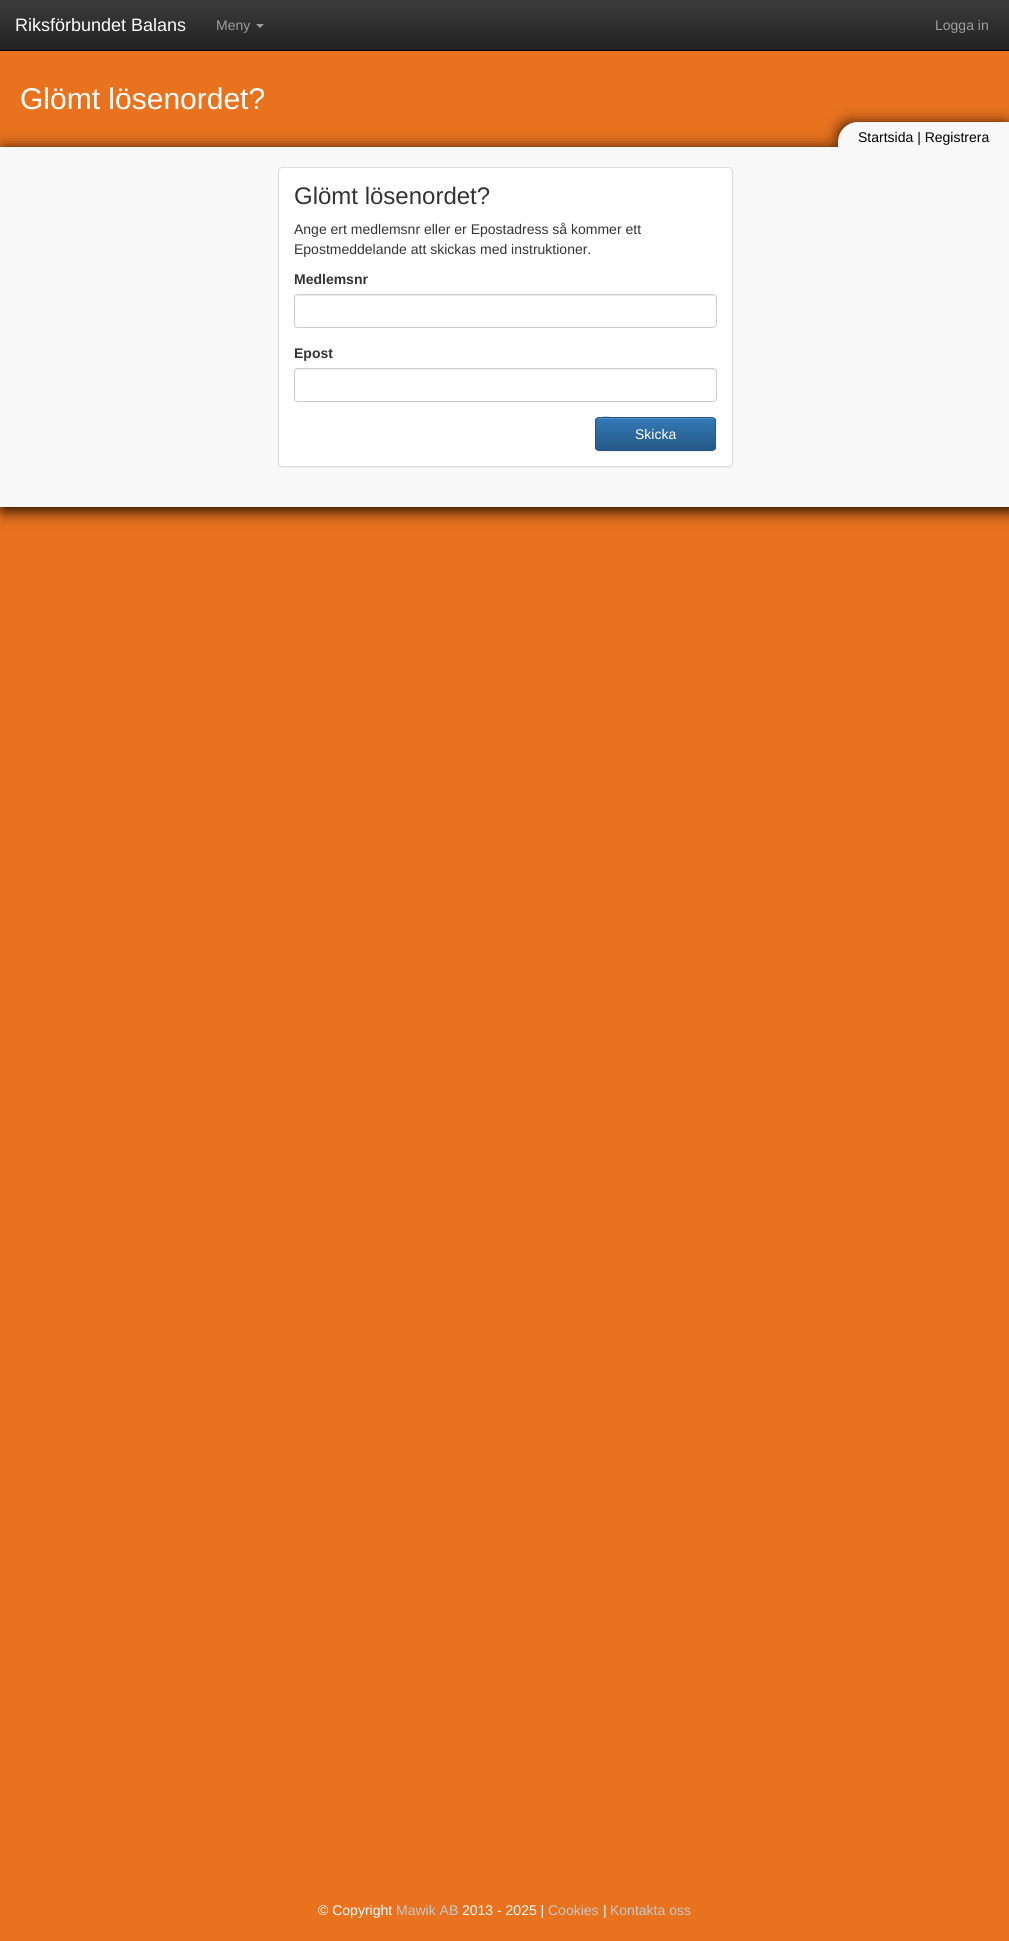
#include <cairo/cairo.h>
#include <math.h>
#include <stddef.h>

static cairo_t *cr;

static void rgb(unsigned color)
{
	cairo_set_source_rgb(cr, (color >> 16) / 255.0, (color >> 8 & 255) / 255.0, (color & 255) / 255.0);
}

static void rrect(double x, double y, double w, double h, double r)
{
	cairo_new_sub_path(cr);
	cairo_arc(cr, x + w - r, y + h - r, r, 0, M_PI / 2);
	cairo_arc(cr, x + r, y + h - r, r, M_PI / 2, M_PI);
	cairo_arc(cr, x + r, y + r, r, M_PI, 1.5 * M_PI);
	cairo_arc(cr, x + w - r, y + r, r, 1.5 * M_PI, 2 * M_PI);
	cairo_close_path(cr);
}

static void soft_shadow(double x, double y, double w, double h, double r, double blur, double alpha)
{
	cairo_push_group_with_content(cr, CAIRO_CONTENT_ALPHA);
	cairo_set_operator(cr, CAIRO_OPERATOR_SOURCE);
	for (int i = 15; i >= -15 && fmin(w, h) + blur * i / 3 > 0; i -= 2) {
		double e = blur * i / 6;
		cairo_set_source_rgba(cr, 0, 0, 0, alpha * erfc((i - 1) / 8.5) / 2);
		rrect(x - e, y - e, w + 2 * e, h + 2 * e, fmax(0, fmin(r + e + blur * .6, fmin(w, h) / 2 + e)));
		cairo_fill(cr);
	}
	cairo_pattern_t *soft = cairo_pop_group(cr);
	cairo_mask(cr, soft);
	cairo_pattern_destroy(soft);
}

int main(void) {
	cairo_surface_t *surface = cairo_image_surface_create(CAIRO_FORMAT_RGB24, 1009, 1941);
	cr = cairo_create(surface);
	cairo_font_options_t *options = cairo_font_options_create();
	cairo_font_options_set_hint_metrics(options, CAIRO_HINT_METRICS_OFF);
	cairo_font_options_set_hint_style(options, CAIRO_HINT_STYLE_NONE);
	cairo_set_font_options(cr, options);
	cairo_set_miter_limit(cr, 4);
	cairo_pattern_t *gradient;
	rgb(0xe8721e);
	cairo_paint(cr);
	gradient = cairo_pattern_create_linear(505, 0, 505, 50);
	cairo_pattern_add_color_stop_rgba(gradient, 0, 0.235, 0.235, 0.235, 1);
	cairo_pattern_add_color_stop_rgba(gradient, 1, 0.133, 0.133, 0.133, 1);
	cairo_set_source(cr, gradient);
	cairo_pattern_destroy(gradient);
	cairo_rectangle(cr, 0, 0, 1009, 50);
	cairo_fill(cr);
	rgb(0x080808);
	cairo_rectangle(cr, 0, 50, 1009, 1);
	cairo_fill(cr);
	rgb(0x9d9d9d);
	cairo_new_path(cr);
	cairo_move_to(cr, 256, 24);
	cairo_line_to(cr, 264, 24);
	cairo_line_to(cr, 260, 28);
	cairo_close_path(cr);
	cairo_fill(cr);
	rgb(0x000000);
	soft_shadow(3, 150, 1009, 360, 0, 8, 1);
	rgb(0xf8f8f8);
	cairo_rectangle(cr, 0, 147, 1009, 360);
	cairo_fill(cr);
	cairo_save(cr);
	cairo_rectangle(cr, 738, 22, 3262, 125);
	cairo_clip(cr);
	rgb(0x000000);
	soft_shadow(841, 125, 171, 25, 20, 8, 1);
	cairo_restore(cr);
	cairo_new_path(cr);
	cairo_move_to(cr, 858, 122);
	cairo_line_to(cr, 1009, 122);
	cairo_line_to(cr, 1009, 147);
	cairo_line_to(cr, 838, 147);
	cairo_line_to(cr, 838, 142);
	cairo_curve_to(cr, 838, 131, 847, 122, 858, 122);
	cairo_close_path(cr);
	cairo_fill(cr);
	rgb(0x000000);
	soft_shadow(278, 168, 455, 300, 4, 1, 0.05);
	rgb(0xffffff);
	rrect(278.5, 167.5, 454, 299, 3.5);
	cairo_fill_preserve(cr);
	rgb(0xdddddd);
	cairo_set_line_width(cr, 1);
	cairo_stroke(cr);
	rgb(0xececec);
	cairo_new_path(cr);
	cairo_move_to(cr, 298, 296);
	cairo_line_to(cr, 713, 296);
	cairo_curve_to(cr, 715, 296, 716, 297, 716, 299);
	cairo_curve_to(cr, 716, 297, 715, 295, 713, 295);
	cairo_line_to(cr, 298, 295);
	cairo_curve_to(cr, 296, 295, 295, 297, 295, 299);
	cairo_curve_to(cr, 295, 297, 296, 296, 298, 296);
	cairo_close_path(cr);
	cairo_fill(cr);
	rrect(294.5, 294.5, 422, 33, 3.5);
	rgb(0xcccccc);
	cairo_stroke(cr);
	rgb(0xececec);
	cairo_new_path(cr);
	cairo_move_to(cr, 298, 370);
	cairo_line_to(cr, 713, 370);
	cairo_curve_to(cr, 715, 370, 716, 371, 716, 373);
	cairo_curve_to(cr, 716, 371, 715, 369, 713, 369);
	cairo_line_to(cr, 298, 369);
	cairo_curve_to(cr, 296, 369, 295, 371, 295, 373);
	cairo_curve_to(cr, 295, 371, 296, 370, 298, 370);
	cairo_close_path(cr);
	cairo_fill(cr);
	rrect(294.5, 368.5, 422, 33, 3.5);
	rgb(0xcccccc);
	cairo_stroke(cr);
	rgb(0x000000);
	soft_shadow(595, 418, 121, 34, 4, 0.5, 0.07);
	cairo_save(cr);
	rrect(595, 417, 121, 34, 4);
	cairo_clip(cr);
	gradient = cairo_pattern_create_linear(656, 418, 656, 450);
	cairo_pattern_add_color_stop_rgba(gradient, 0, 0.2, 0.478, 0.718, 1);
	cairo_pattern_add_color_stop_rgba(gradient, 1, 0.149, 0.353, 0.533, 1);
	cairo_set_source(cr, gradient);
	cairo_pattern_destroy(gradient);
	cairo_rectangle(cr, 595, 418, 121, 32);
	cairo_fill(cr);
	cairo_restore(cr);
	rgb(0x528ec1);
	cairo_new_path(cr);
	cairo_move_to(cr, 599, 419);
	cairo_line_to(cr, 712, 419);
	cairo_curve_to(cr, 714, 419, 715, 420, 715, 422);
	cairo_curve_to(cr, 715, 420, 714, 418, 712, 418);
	cairo_line_to(cr, 618, 418);
	cairo_curve_to(cr, 617, 418, 596, 413, 596, 422);
	cairo_curve_to(cr, 596, 420, 597, 419, 599, 419);
	cairo_close_path(cr);
	cairo_fill(cr);
	rrect(595.5, 417.5, 120, 33, 3.5);
	rgb(0x245580);
	cairo_stroke(cr);
	cairo_select_font_face(cr, "Liberation Sans", CAIRO_FONT_SLANT_NORMAL, CAIRO_FONT_WEIGHT_NORMAL);
	cairo_set_font_size(cr, 18);
	rgb(0xffffff);
	cairo_move_to(cr, 15, 31);
	cairo_show_text(cr, "Riksförbundet Balans");
	cairo_set_font_size(cr, 14);
	rgb(0x9d9d9d);
	cairo_move_to(cr, 216, 30);
	cairo_show_text(cr, "Meny");
	cairo_move_to(cr, 935, 30);
	cairo_show_text(cr, "Logga in");
	cairo_set_font_size(cr, 30);
	rgb(0xffffff);
	cairo_move_to(cr, 20, 109);
	cairo_show_text(cr, "Glömt lösenordet?");
	cairo_set_font_size(cr, 14);
	rgb(0x000000);
	cairo_move_to(cr, 858, 142);
	cairo_show_text(cr, "Startsida | Registrera");
	cairo_set_font_size(cr, 24);
	rgb(0x333333);
	cairo_move_to(cr, 294, 204);
	cairo_show_text(cr, "Glömt lösenordet?");
	cairo_set_font_size(cr, 14);
	cairo_move_to(cr, 294, 234);
	cairo_show_text(cr, "Ange ert medlemsnr eller er Epostadress så kommer ett");
	cairo_move_to(cr, 294, 254);
	cairo_show_text(cr, "Epostmeddelande att skickas med instruktioner.");
	cairo_select_font_face(cr, "Liberation Sans", CAIRO_FONT_SLANT_NORMAL, CAIRO_FONT_WEIGHT_BOLD);
	cairo_move_to(cr, 294, 284);
	cairo_show_text(cr, "Medlemsnr");
	cairo_move_to(cr, 294, 358);
	cairo_show_text(cr, "Epost");
	cairo_select_font_face(cr, "Liberation Sans", CAIRO_FONT_SLANT_NORMAL, CAIRO_FONT_WEIGHT_NORMAL);
	rgb(0xffffff);
	cairo_move_to(cr, 635, 439);
	cairo_show_text(cr, "Skicka");
	cairo_move_to(cr, 318, 1915);
	cairo_show_text(cr, "© Copyright");
	rgb(0xc5c9cc);
	cairo_move_to(cr, 396, 1915);
	cairo_show_text(cr, "Mawik AB");
	rgb(0xffffff);
	cairo_move_to(cr, 462, 1915);
	cairo_show_text(cr, "2013 - 2025 |");
	rgb(0xc5c9cc);
	cairo_move_to(cr, 548, 1915);
	cairo_show_text(cr, "Cookies");
	rgb(0xffffff);
	cairo_move_to(cr, 603, 1915);
	cairo_show_text(cr, "|");
	rgb(0xc5c9cc);
	cairo_move_to(cr, 610, 1915);
	cairo_show_text(cr, "Kontakta oss");
	cairo_surface_write_to_png(surface, "page.png");
	cairo_font_options_destroy(options);
	cairo_destroy(cr);
	cairo_surface_destroy(surface);
	return 0;
}
